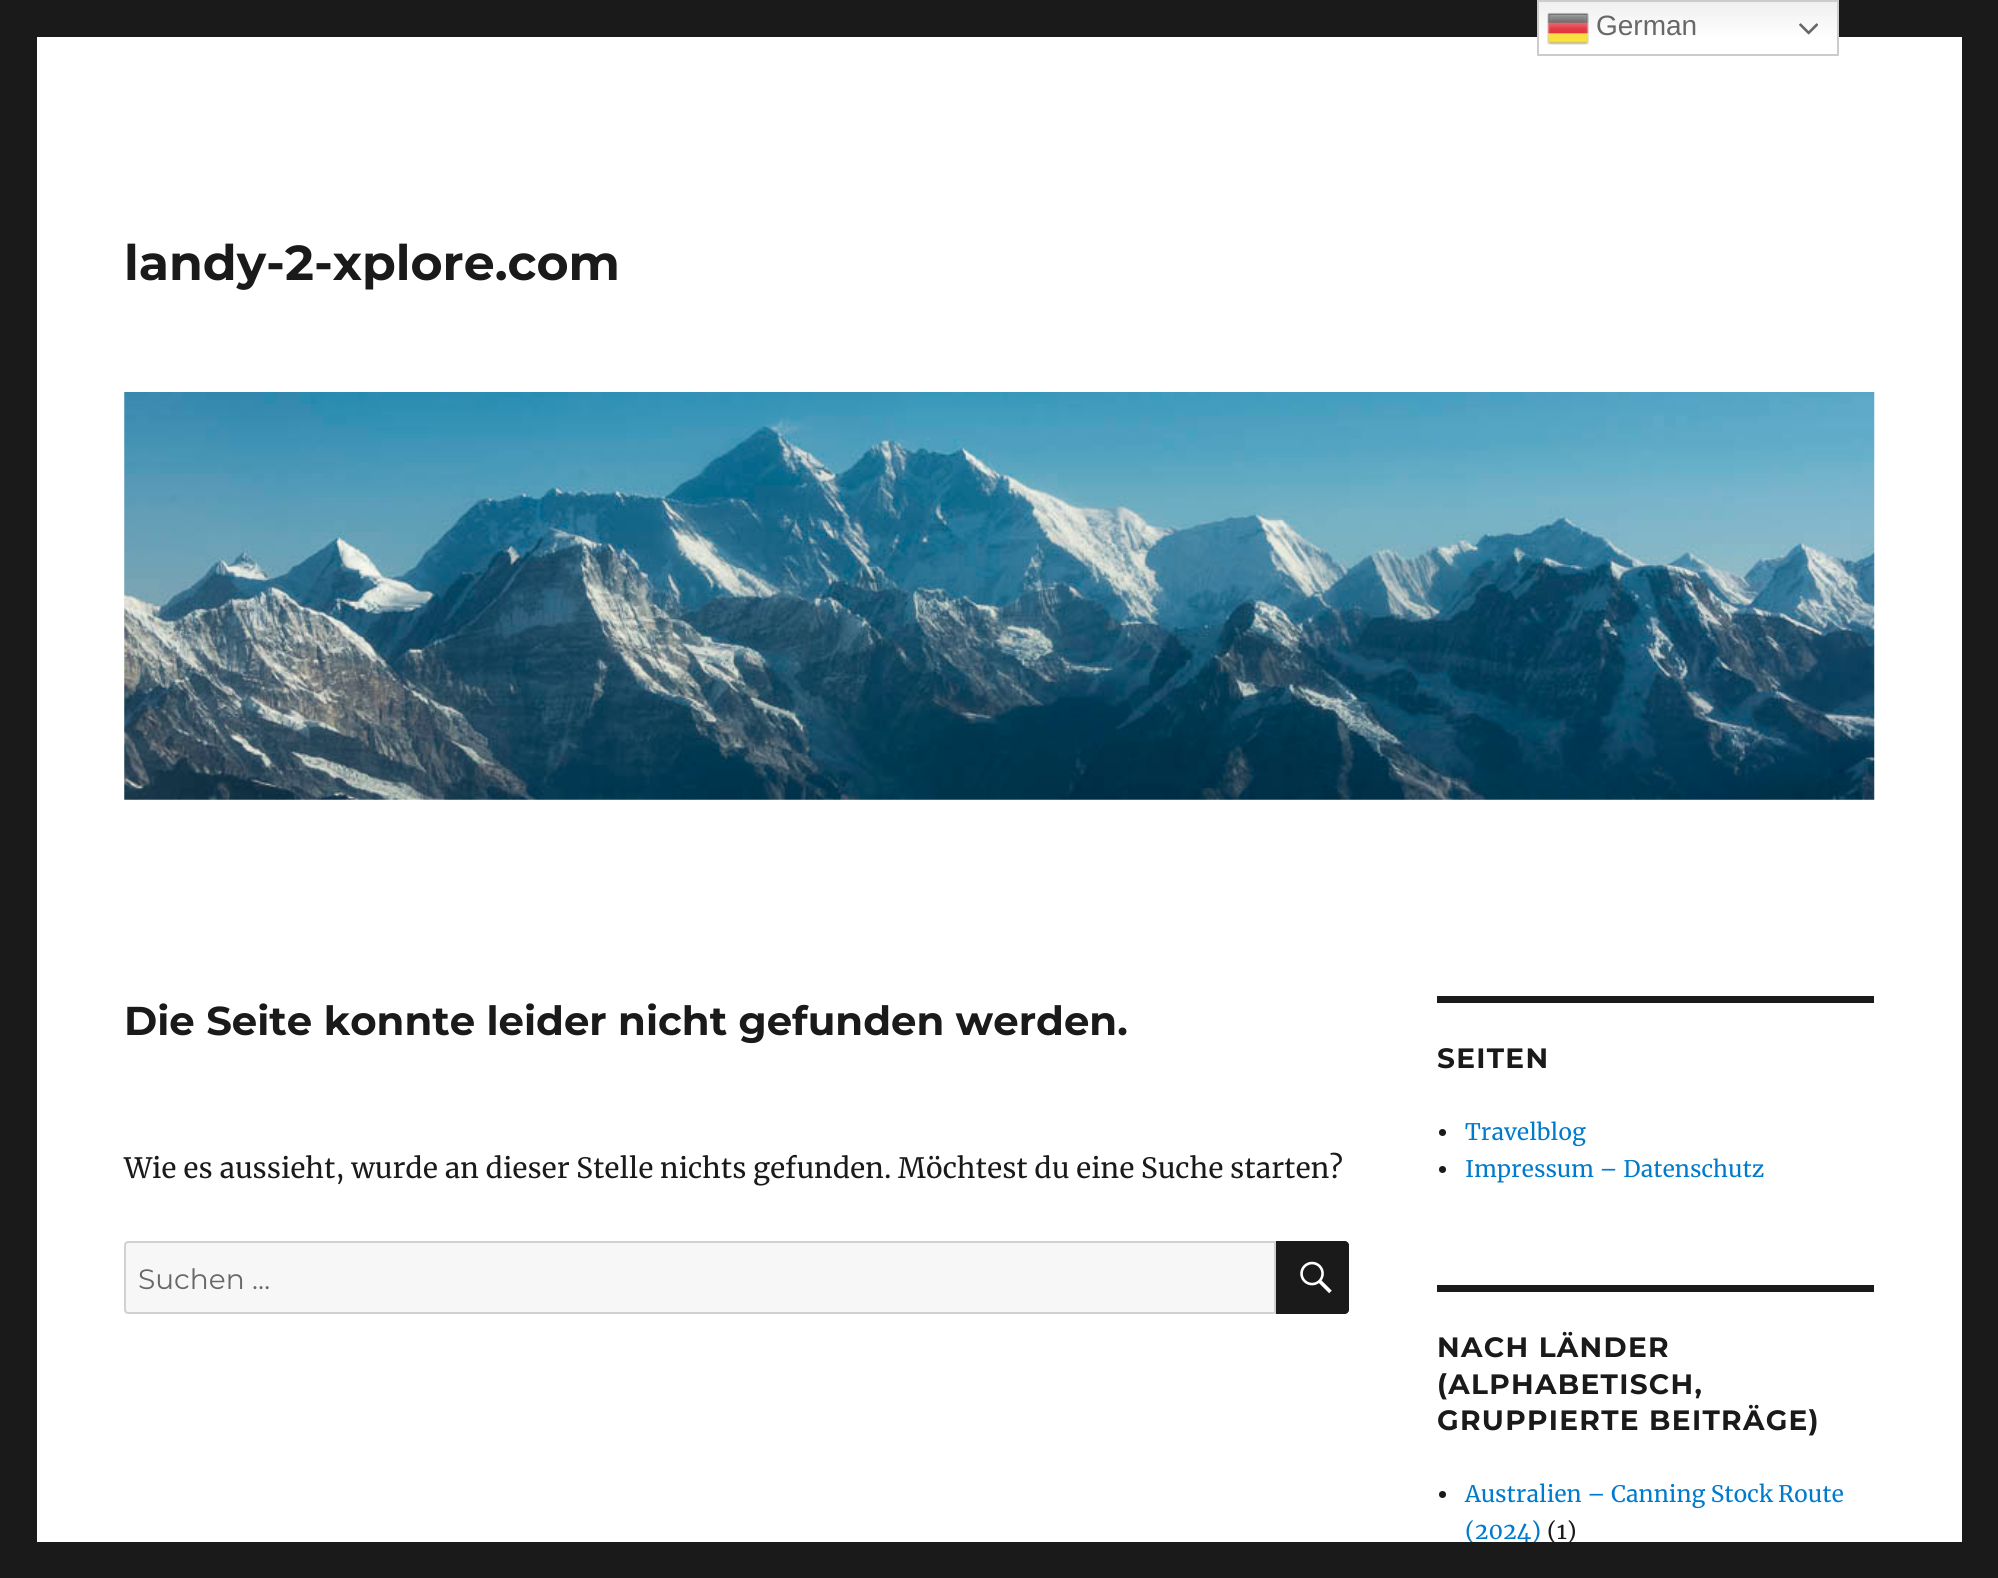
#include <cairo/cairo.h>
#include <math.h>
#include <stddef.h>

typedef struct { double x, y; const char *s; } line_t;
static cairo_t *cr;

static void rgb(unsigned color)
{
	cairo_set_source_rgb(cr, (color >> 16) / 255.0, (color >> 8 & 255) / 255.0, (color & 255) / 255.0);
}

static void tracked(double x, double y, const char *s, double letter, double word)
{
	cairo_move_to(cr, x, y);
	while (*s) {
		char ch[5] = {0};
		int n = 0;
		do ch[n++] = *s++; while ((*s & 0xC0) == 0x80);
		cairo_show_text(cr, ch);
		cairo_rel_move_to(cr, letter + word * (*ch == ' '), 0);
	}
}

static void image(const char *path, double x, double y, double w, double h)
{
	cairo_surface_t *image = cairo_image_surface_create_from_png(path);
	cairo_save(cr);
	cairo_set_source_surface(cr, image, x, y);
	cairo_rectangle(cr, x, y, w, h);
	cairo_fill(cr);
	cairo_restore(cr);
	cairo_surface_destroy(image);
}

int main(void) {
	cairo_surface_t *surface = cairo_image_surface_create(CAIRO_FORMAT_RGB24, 1998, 1578);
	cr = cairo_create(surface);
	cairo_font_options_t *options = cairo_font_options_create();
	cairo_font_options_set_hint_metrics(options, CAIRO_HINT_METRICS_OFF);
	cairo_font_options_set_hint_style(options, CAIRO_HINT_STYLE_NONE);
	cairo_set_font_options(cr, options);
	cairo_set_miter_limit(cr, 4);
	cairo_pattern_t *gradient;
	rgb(0x1a1a1a);
	cairo_paint(cr);
	gradient = cairo_pattern_create_linear(1688, 0, 1688, 56);
	cairo_pattern_add_color_stop_rgba(gradient, 0, 0.937, 0.937, 0.937, 1);
	cairo_pattern_add_color_stop_rgba(gradient, 0.7, 1, 1, 1, 1);
	cairo_set_source(cr, gradient);
	cairo_pattern_destroy(gradient);
	cairo_rectangle(cr, 1539, 2, 298, 35);
	cairo_fill(cr);
	rgb(0xffffff);
	cairo_rectangle(cr, 37, 37, 1925, 1505);
	cairo_fill(cr);
	cairo_rectangle(cr, 1538, 1, 300, 54);
	rgb(0xcccccc);
	cairo_stroke(cr);
	image("img/1.png", 1547, 12, 42, 33);
	image("img/2.png", 1799, 23, 19, 12);
	image("img/3.png", 124, 392, 1751, 408);
	rgb(0xf7f7f7);
	cairo_new_path(cr);
	cairo_move_to(cr, 128, 1242);
	cairo_line_to(cr, 1275, 1242);
	cairo_line_to(cr, 1275, 1313);
	cairo_line_to(cr, 128, 1313);
	cairo_curve_to(cr, 126.5, 1313, 125, 1311.5, 125, 1310);
	cairo_line_to(cr, 125, 1245);
	cairo_curve_to(cr, 125, 1243.5, 126.5, 1242, 128, 1242);
	cairo_close_path(cr);
	cairo_fill_preserve(cr);
	rgb(0xd1d1d1);
	cairo_stroke(cr);
	rgb(0x1a1a1a);
	cairo_new_path(cr);
	cairo_move_to(cr, 1276, 1241);
	cairo_line_to(cr, 1345, 1241);
	cairo_curve_to(cr, 1347, 1241, 1349, 1243, 1349, 1245);
	cairo_line_to(cr, 1349, 1310);
	cairo_curve_to(cr, 1349, 1312, 1347, 1314, 1345, 1314);
	cairo_line_to(cr, 1276, 1314);
	cairo_close_path(cr);
	cairo_fill(cr);
	image("img/4.png", 1300, 1261, 32, 33);
	cairo_rectangle(cr, 1437, 996, 437, 7);
	cairo_fill(cr);
	cairo_arc(cr, 1442.5, 1132.5, 3.5, 0, 2 * M_PI);
	cairo_fill(cr);
	cairo_arc(cr, 1442.5, 1169.5, 3.5, 0, 2 * M_PI);
	cairo_fill(cr);
	cairo_rectangle(cr, 1437, 1285, 437, 7);
	cairo_fill(cr);
	cairo_arc(cr, 1442.5, 1494.5, 3.5, 0, 2 * M_PI);
	cairo_fill(cr);
	cairo_select_font_face(cr, "Liberation Sans", CAIRO_FONT_SLANT_NORMAL, CAIRO_FONT_WEIGHT_NORMAL);
	cairo_set_font_size(cr, 28);
	rgb(0x686868);
	cairo_move_to(cr, 1596, 35);
	cairo_show_text(cr, "German");
	cairo_select_font_face(cr, "Montserrat Thin", CAIRO_FONT_SLANT_NORMAL, CAIRO_FONT_WEIGHT_NORMAL);
	cairo_set_font_size(cr, 49);
	rgb(0x1a1a1a);
	cairo_move_to(cr, 124, 280);
	cairo_show_text(cr, "landy-2-xplore.com");
	cairo_set_font_size(cr, 40.25);
	cairo_move_to(cr, 124, 1035);
	cairo_show_text(cr, "Die Seite konnte leider nicht gefunden werden.");
	cairo_select_font_face(cr, "Merriweather", CAIRO_FONT_SLANT_NORMAL, CAIRO_FONT_WEIGHT_NORMAL);
	cairo_set_font_size(cr, 28);
	cairo_move_to(cr, 124, 1178);
	cairo_show_text(cr, "Wie es aussieht, wurde an dieser Stelle nichts gefunden. Möchtest du eine Suche starten?");
	cairo_select_font_face(cr, "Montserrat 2 Thin", CAIRO_FONT_SLANT_NORMAL, CAIRO_FONT_WEIGHT_NORMAL);
	rgb(0x686868);
	cairo_move_to(cr, 138, 1289);
	cairo_show_text(cr, "Suchen …");
	cairo_select_font_face(cr, "Montserrat Thin", CAIRO_FONT_SLANT_NORMAL, CAIRO_FONT_WEIGHT_NORMAL);
	rgb(0x1a1a1a);
	tracked(1437, 1068, "SEITEN", 1.3, 0);
	cairo_select_font_face(cr, "Merriweather", CAIRO_FONT_SLANT_NORMAL, CAIRO_FONT_WEIGHT_NORMAL);
	cairo_set_font_size(cr, 22.75);
	rgb(0x007acc);
	cairo_move_to(cr, 1465, 1140);
	cairo_show_text(cr, "Travelblog");
	cairo_move_to(cr, 1465, 1177);
	cairo_show_text(cr, "Impressum – Datenschutz");
	cairo_select_font_face(cr, "Montserrat Thin", CAIRO_FONT_SLANT_NORMAL, CAIRO_FONT_WEIGHT_NORMAL);
	cairo_set_font_size(cr, 28);
	rgb(0x1a1a1a);
	{
		static const line_t items[] = {
			{1437, 1357, "NACH LÄNDER"},
			{1437, 1394, "(ALPHABETISCH,"},
			{1437, 1430, "GRUPPIERTE BEITRÄGE)"},
		};
		for (size_t i = 0; i < sizeof items / sizeof *items; i++) {
			tracked(items[i].x, items[i].y, items[i].s, 1.3, 0);
		}
	}
	cairo_select_font_face(cr, "Merriweather", CAIRO_FONT_SLANT_NORMAL, CAIRO_FONT_WEIGHT_NORMAL);
	cairo_set_font_size(cr, 22.75);
	rgb(0x007acc);
	cairo_move_to(cr, 1465, 1502);
	cairo_show_text(cr, "Australien – Canning Stock Route");
	cairo_move_to(cr, 1465, 1539);
	cairo_show_text(cr, "(2024)");
	rgb(0x1a1a1a);
	cairo_move_to(cr, 1547, 1539);
	cairo_show_text(cr, "(1)");
	cairo_rectangle(cr, 1471, 1542, 65, 2);
	cairo_fill(cr);
	cairo_surface_write_to_png(surface, "page.png");
	cairo_font_options_destroy(options);
	cairo_destroy(cr);
	cairo_surface_destroy(surface);
	return 0;
}
